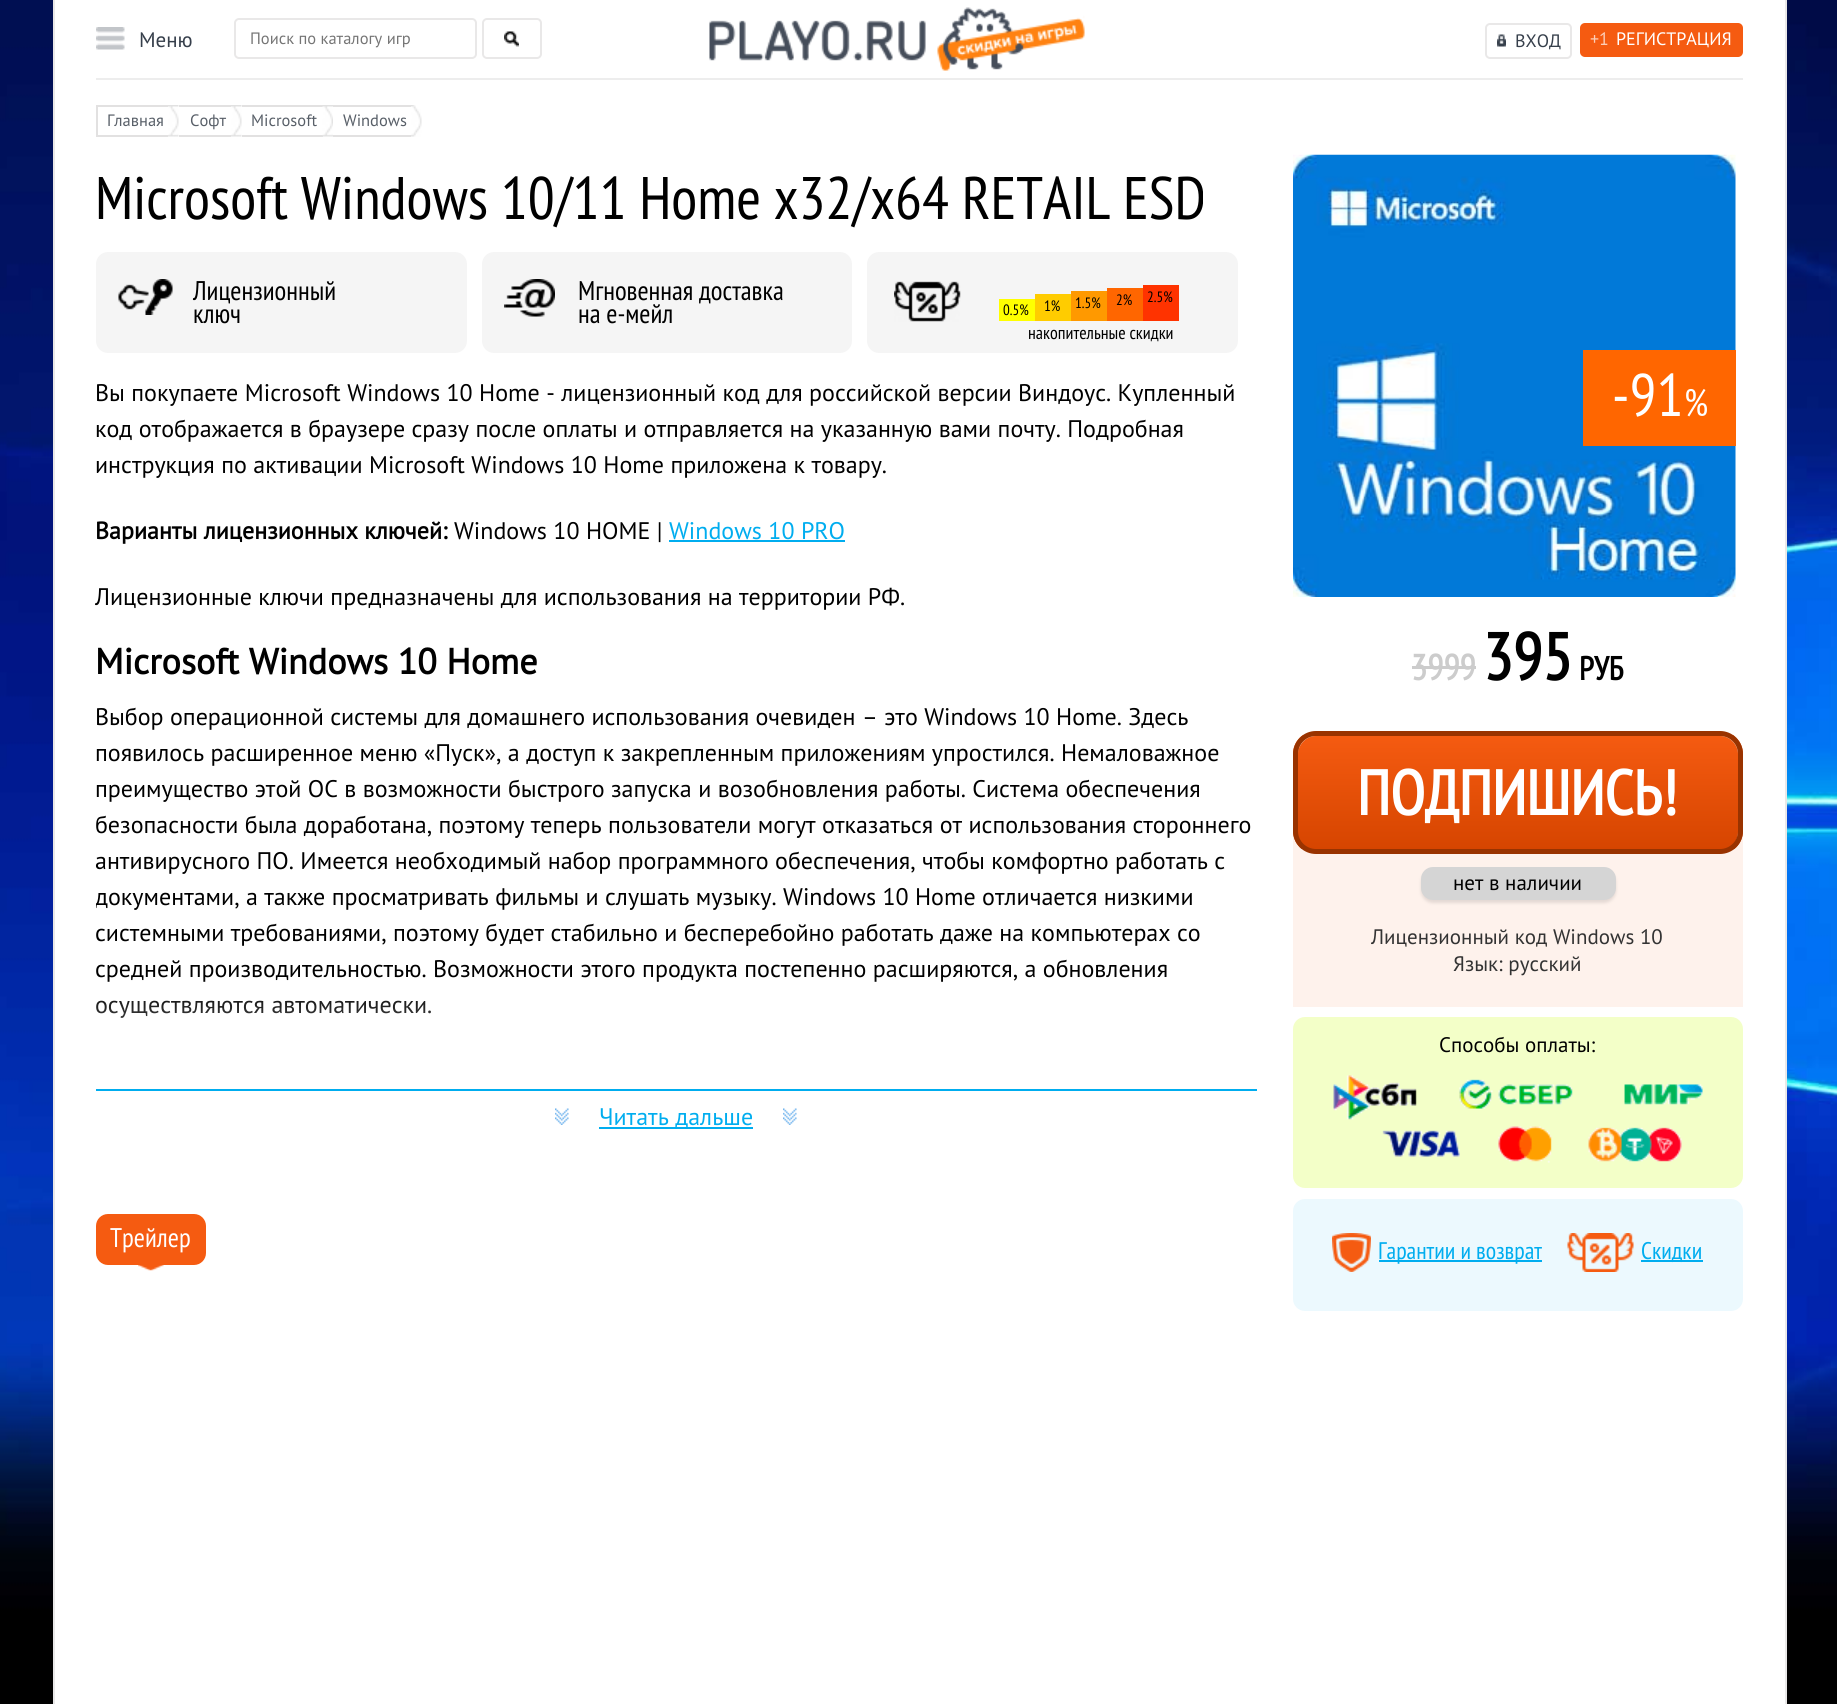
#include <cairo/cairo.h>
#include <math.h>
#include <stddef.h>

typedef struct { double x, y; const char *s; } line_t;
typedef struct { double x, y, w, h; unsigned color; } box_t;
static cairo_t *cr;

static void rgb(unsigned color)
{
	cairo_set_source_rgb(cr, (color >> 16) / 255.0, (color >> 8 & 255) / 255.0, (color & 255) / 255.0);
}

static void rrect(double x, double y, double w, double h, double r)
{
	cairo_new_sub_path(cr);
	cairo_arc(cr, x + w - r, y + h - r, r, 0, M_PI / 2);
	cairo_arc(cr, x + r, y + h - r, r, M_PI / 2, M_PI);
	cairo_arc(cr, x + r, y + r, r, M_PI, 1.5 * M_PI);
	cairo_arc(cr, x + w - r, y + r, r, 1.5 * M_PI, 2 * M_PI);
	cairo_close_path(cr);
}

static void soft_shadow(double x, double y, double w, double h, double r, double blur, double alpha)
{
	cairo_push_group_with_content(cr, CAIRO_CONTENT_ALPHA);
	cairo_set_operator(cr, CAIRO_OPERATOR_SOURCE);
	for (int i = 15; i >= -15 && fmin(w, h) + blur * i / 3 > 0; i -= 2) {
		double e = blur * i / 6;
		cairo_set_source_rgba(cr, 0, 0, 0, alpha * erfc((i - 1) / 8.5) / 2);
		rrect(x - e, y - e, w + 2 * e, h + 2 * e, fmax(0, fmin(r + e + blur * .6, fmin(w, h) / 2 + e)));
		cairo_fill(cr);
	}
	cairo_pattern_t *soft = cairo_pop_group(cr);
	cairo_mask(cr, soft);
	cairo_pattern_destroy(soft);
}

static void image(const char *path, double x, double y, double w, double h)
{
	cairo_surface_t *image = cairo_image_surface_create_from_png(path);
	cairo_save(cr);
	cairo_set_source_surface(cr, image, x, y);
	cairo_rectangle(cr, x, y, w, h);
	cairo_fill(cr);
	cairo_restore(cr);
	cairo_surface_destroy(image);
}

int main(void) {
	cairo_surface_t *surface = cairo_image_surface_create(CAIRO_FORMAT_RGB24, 1837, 1704);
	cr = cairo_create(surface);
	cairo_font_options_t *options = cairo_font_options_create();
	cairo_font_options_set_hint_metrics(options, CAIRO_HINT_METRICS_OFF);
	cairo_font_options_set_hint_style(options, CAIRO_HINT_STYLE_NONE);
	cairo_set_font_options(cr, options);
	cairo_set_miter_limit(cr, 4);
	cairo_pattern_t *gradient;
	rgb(0x000000);
	cairo_paint(cr);
	image("img/1.png", 0, 0, 1837, 1620);
	{
		static const box_t items[] = {
			{55, 0, 1730, 1704, 0xffffff},
			{1785, 0, 2, 1704, 0xe9e8e8},
			{53, 0, 2, 1704, 0xe9e8e8},
			{96, 78, 1647, 2, 0xededed},
		};
		for (size_t i = 0; i < sizeof items / sizeof *items; i++) {
			rgb(items[i].color);
			cairo_rectangle(cr, items[i].x, items[i].y, items[i].w, items[i].h);
			cairo_fill(cr);
		}
	}
	image("img/2.png", 96, 27, 29, 23);
	rrect(235, 19, 241, 39, 4);
	rgb(0xe9e8e8);
	cairo_stroke(cr);
	image("img/3.png", 504, 31, 15, 16);
	rrect(483, 19, 58, 39, 4);
	cairo_stroke(cr);
	image("img/4.png", 709, 7, 376, 64);
	image("img/5.png", 1497, 34, 9, 13);
	rrect(1486, 24, 85, 34, 4);
	cairo_stroke(cr);
	rgb(0xf55b11);
	rrect(1580, 23, 163, 34, 5);
	cairo_fill(cr);
	{
		static const box_t items[] = {
			{96, 105, 72, 2, 0xe2e1e1},
			{96, 135, 72, 2, 0xe2e1e1},
			{96, 105, 2, 32, 0xe2e1e1},
		};
		for (size_t i = 0; i < sizeof items / sizeof *items; i++) {
			rgb(items[i].color);
			cairo_rectangle(cr, items[i].x, items[i].y, items[i].w, items[i].h);
			cairo_fill(cr);
		}
	}
	image("img/6.png", 168, 105, 11, 32);
	cairo_rectangle(cr, 179, 105, 52, 2);
	cairo_fill(cr);
	cairo_rectangle(cr, 179, 135, 52, 2);
	cairo_fill(cr);
	image("img/6.png", 231, 105, 11, 32);
	cairo_rectangle(cr, 242, 105, 81, 2);
	cairo_fill(cr);
	cairo_rectangle(cr, 242, 135, 81, 2);
	cairo_fill(cr);
	image("img/7.png", 322, 105, 11, 32);
	cairo_rectangle(cr, 333, 105, 78, 2);
	cairo_fill(cr);
	cairo_rectangle(cr, 333, 135, 78, 2);
	cairo_fill(cr);
	image("img/8.png", 411, 105, 11, 32);
	rgb(0xf5f5f5);
	rrect(96, 252, 371, 101, 12);
	cairo_fill(cr);
	image("img/9.png", 118, 279, 55, 36);
	rrect(482, 252, 370, 101, 12);
	cairo_fill(cr);
	image("img/10.png", 504, 279, 51, 38);
	rrect(867, 252, 371, 101, 12);
	cairo_fill(cr);
	image("img/11.png", 894, 281, 67, 41);
	{
		static const box_t items[] = {
			{999, 299, 36, 22, 0xffff00},
			{1035, 294, 36, 27, 0xffcc00},
			{1071, 291, 36, 30, 0xff9900},
			{1107, 288, 36, 33, 0xff6600},
			{1143, 285, 36, 36, 0xff3300},
			{669, 540, 176, 2, 0x00adef},
			{96, 1089, 1161, 2, 0x00adef},
		};
		for (size_t i = 0; i < sizeof items / sizeof *items; i++) {
			rgb(items[i].color);
			cairo_rectangle(cr, items[i].x, items[i].y, items[i].w, items[i].h);
			cairo_fill(cr);
		}
	}
	image("img/13.png", 555, 1108, 14, 17);
	cairo_rectangle(cr, 599, 1127, 154, 2);
	cairo_fill(cr);
	image("img/13.png", 783, 1108, 14, 17);
	rgb(0xf55b11);
	rrect(96, 1214, 110, 51, 12);
	cairo_fill(cr);
	image("img/14.png", 138, 1265, 26, 6);
	image("img/15.png", 1293, 154, 443, 443);
	rgb(0xff6600);
	cairo_rectangle(cr, 1583, 350, 153, 96);
	cairo_fill(cr);
	rgb(0xcccccc);
	cairo_rectangle(cr, 1412, 666, 64, 3);
	cairo_fill(cr);
	rgb(0xfef2ec);
	cairo_new_path(cr);
	cairo_move_to(cr, 1316, 731);
	cairo_line_to(cr, 1720, 731);
	cairo_curve_to(cr, 1732.5, 731, 1743, 741.5, 1743, 754);
	cairo_line_to(cr, 1743, 1007);
	cairo_line_to(cr, 1293, 1007);
	cairo_line_to(cr, 1293, 754);
	cairo_curve_to(cr, 1293, 741.5, 1303.5, 731, 1316, 731);
	cairo_close_path(cr);
	cairo_fill(cr);
	cairo_save(cr);
	rrect(1293, 731, 450, 123, 23);
	cairo_clip(cr);
	gradient = cairo_pattern_create_linear(1518, 849, 1518, 735);
	cairo_pattern_add_color_stop_rgba(gradient, 0, 0.839, 0.271, 0, 1);
	cairo_pattern_add_color_stop_rgba(gradient, 1, 0.961, 0.357, 0.067, 1);
	cairo_set_source(cr, gradient);
	cairo_pattern_destroy(gradient);
	cairo_rectangle(cr, 1293, 735, 450, 114);
	cairo_fill(cr);
	cairo_restore(cr);
	rgb(0xfcd3bf);
	cairo_new_path(cr);
	cairo_move_to(cr, 1316, 736);
	cairo_line_to(cr, 1720, 736);
	cairo_curve_to(cr, 1730, 736, 1738, 745, 1738, 754);
	cairo_line_to(cr, 1738, 832);
	cairo_curve_to(cr, 1738, 837, 1736, 841, 1734, 844);
	cairo_curve_to(cr, 1737, 841, 1739, 836, 1739, 831);
	cairo_line_to(cr, 1739, 753);
	cairo_curve_to(cr, 1739, 743, 1731, 735, 1721, 735);
	cairo_line_to(cr, 1316, 735);
	cairo_curve_to(cr, 1306, 735, 1298, 743, 1298, 753);
	cairo_line_to(cr, 1298, 754);
	cairo_curve_to(cr, 1298, 745, 1306, 736, 1316, 736);
	cairo_close_path(cr);
	cairo_fill(cr);
	rrect(1295.5, 733.5, 445, 118, 20.5);
	rgb(0x993300);
	cairo_set_line_width(cr, 5);
	cairo_stroke(cr);
	rgb(0xe4d9d4);
	soft_shadow(1421, 870, 195, 33, 12, 1.5, 1);
	rgb(0xd5d5d5);
	rrect(1421, 867, 195, 33, 12);
	cairo_fill(cr);
	rgb(0xf3ffc8);
	rrect(1293, 1017, 450, 171, 12);
	cairo_fill(cr);
	image("img/16.png", 1333, 1075, 370, 88);
	rgb(0xecf9fe);
	rrect(1293, 1199, 450, 112, 12);
	cairo_fill(cr);
	image("img/17.png", 1332, 1233, 39, 39);
	rgb(0x00adef);
	cairo_rectangle(cr, 1379, 1260, 163, 2);
	cairo_fill(cr);
	image("img/18.png", 1567, 1233, 67, 39);
	cairo_rectangle(cr, 1641, 1260, 62, 2);
	cairo_fill(cr);
	cairo_select_font_face(cr, "PT Sans", CAIRO_FONT_SLANT_NORMAL, CAIRO_FONT_WEIGHT_NORMAL);
	cairo_set_font_size(cr, 21);
	rgb(0x363f4b);
	cairo_move_to(cr, 139, 47);
	cairo_show_text(cr, "Меню");
	cairo_set_font_size(cr, 16.5);
	rgb(0x757575);
	cairo_move_to(cr, 250, 44);
	cairo_show_text(cr, "Поиск по каталогу игр");
	cairo_set_font_size(cr, 18);
	rgb(0x363f4b);
	cairo_move_to(cr, 1515, 47);
	cairo_show_text(cr, "ВХОД");
	rgb(0xfcceb8);
	cairo_move_to(cr, 1590, 45);
	cairo_show_text(cr, "+1");
	rgb(0xffffff);
	cairo_move_to(cr, 1616, 45);
	cairo_show_text(cr, "РЕГИСТРАЦИЯ");
	cairo_set_font_size(cr, 16.5);
	rgb(0x585f68);
	{
		static const line_t items[] = {
			{107, 126, "Главная"},
			{190, 126, "Софт"},
			{251, 126, "Microsoft"},
			{343, 126, "Windows"},
		};
		for (size_t i = 0; i < sizeof items / sizeof *items; i++) {
			cairo_move_to(cr, items[i].x, items[i].y);
			cairo_show_text(cr, items[i].s);
		}
	}
	cairo_select_font_face(cr, "PT Sans Narrow", CAIRO_FONT_SLANT_NORMAL, CAIRO_FONT_WEIGHT_NORMAL);
	cairo_set_font_size(cr, 60);
	rgb(0x000000);
	cairo_move_to(cr, 95, 219);
	cairo_show_text(cr, "Microsoft Windows 10/11 Home x32/x64 RETAIL ESD");
	cairo_set_font_size(cr, 27);
	{
		static const line_t items[] = {
			{193, 300, "Лицензионный"},
			{193, 323, "ключ"},
			{578, 300, "Мгновенная доставка"},
			{578, 323, "на е-мейл"},
		};
		for (size_t i = 0; i < sizeof items / sizeof *items; i++) {
			cairo_move_to(cr, items[i].x, items[i].y);
			cairo_show_text(cr, items[i].s);
		}
	}
	cairo_set_font_size(cr, 15);
	{
		static const line_t items[] = {
			{1003, 315, "0.5%"},
			{1044, 311, "1%"},
			{1075, 308, "1.5%"},
			{1116, 305, "2%"},
			{1147, 302, "2.5%"},
		};
		for (size_t i = 0; i < sizeof items / sizeof *items; i++) {
			cairo_move_to(cr, items[i].x, items[i].y);
			cairo_show_text(cr, items[i].s);
		}
	}
	cairo_set_font_size(cr, 18);
	cairo_move_to(cr, 1028, 339);
	cairo_show_text(cr, "накопительные скидки");
	cairo_select_font_face(cr, "PT Sans", CAIRO_FONT_SLANT_NORMAL, CAIRO_FONT_WEIGHT_NORMAL);
	cairo_set_font_size(cr, 24);
	{
		static const line_t items[] = {
			{95, 401, "Вы покупаете Microsoft Windows 10 Home - лицензионный код для российской версии Виндоус. Купленный"},
			{95, 437, "код отображается в браузере сразу после оплаты и отправляется на указанную вами почту. Подробная"},
			{95, 473, "инструкция по активации Microsoft Windows 10 Home приложена к товару."},
		};
		for (size_t i = 0; i < sizeof items / sizeof *items; i++) {
			cairo_move_to(cr, items[i].x, items[i].y);
			cairo_show_text(cr, items[i].s);
		}
	}
	cairo_select_font_face(cr, "PT Sans", CAIRO_FONT_SLANT_NORMAL, CAIRO_FONT_WEIGHT_BOLD);
	cairo_move_to(cr, 95, 539);
	cairo_show_text(cr, "Варианты лицензионных ключей:");
	cairo_select_font_face(cr, "PT Sans", CAIRO_FONT_SLANT_NORMAL, CAIRO_FONT_WEIGHT_NORMAL);
	cairo_move_to(cr, 454, 539);
	cairo_show_text(cr, "Windows 10 HOME |");
	rgb(0x00adef);
	cairo_move_to(cr, 669, 539);
	cairo_show_text(cr, "Windows 10 PRO");
	rgb(0x000000);
	cairo_move_to(cr, 95, 605);
	cairo_show_text(cr, "Лицензионные ключи предназначены для использования на территории РФ.");
	cairo_select_font_face(cr, "PT Sans", CAIRO_FONT_SLANT_NORMAL, CAIRO_FONT_WEIGHT_BOLD);
	cairo_set_font_size(cr, 36);
	cairo_move_to(cr, 95, 674);
	cairo_show_text(cr, "Microsoft Windows 10 Home");
	cairo_select_font_face(cr, "PT Sans", CAIRO_FONT_SLANT_NORMAL, CAIRO_FONT_WEIGHT_NORMAL);
	cairo_set_font_size(cr, 24);
	{
		static const line_t items[] = {
			{95, 725, "Выбор операционной системы для домашнего использования очевиден – это Windows 10 Home. Здесь"},
			{95, 761, "появилось расширенное меню «Пуск», а доступ к закрепленным приложениям упростился. Немаловажное"},
			{95, 797, "преимущество этой ОС в возможности быстрого запуска и возобновления работы. Система обеспечения"},
			{95, 833, "безопасности была доработана, поэтому теперь пользователи могут отказаться от использования стороннего"},
			{95, 869, "антивирусного ПО. Имеется необходимый набор программного обеспечения, чтобы комфортно работать с"},
		};
		for (size_t i = 0; i < sizeof items / sizeof *items; i++) {
			cairo_move_to(cr, items[i].x, items[i].y);
			cairo_show_text(cr, items[i].s);
		}
	}
	cairo_save(cr);
	cairo_rectangle(cr, 96, 252, 1161, 825);
	cairo_clip(cr);
	cairo_move_to(cr, 95, 905);
	cairo_show_text(cr, "документами, а также просматривать фильмы и слушать музыку. Windows 10 Home отличается низкими");
	cairo_restore(cr);
	{
		static const line_t items[] = {
			{95, 941, "системными требованиями, поэтому будет стабильно и бесперебойно работать даже на компьютерах со"},
			{95, 977, "средней производительностью. Возможности этого продукта постепенно расширяются, а обновления"},
			{95, 1013, "осуществляются автоматически."},
		};
		for (size_t i = 0; i < sizeof items / sizeof *items; i++) {
			cairo_move_to(cr, items[i].x, items[i].y);
			cairo_show_text(cr, items[i].s);
		}
	}
	image("img/12.png", 96, 978, 1073, 99);
	rgb(0x00adef);
	cairo_move_to(cr, 599, 1125);
	cairo_show_text(cr, "Читать дальше");
	cairo_select_font_face(cr, "PT Sans Narrow", CAIRO_FONT_SLANT_NORMAL, CAIRO_FONT_WEIGHT_NORMAL);
	cairo_set_font_size(cr, 27);
	rgb(0xffffff);
	cairo_move_to(cr, 110, 1247);
	cairo_show_text(cr, "Трейлер");
	cairo_set_font_size(cr, 60);
	cairo_move_to(cr, 1612, 416);
	cairo_show_text(cr, "-91");
	cairo_set_font_size(cr, 38);
	cairo_move_to(cr, 1684, 416);
	cairo_show_text(cr, "%");
	cairo_select_font_face(cr, "PT Sans Narrow", CAIRO_FONT_SLANT_NORMAL, CAIRO_FONT_WEIGHT_BOLD);
	cairo_set_font_size(cr, 36);
	rgb(0xcccccc);
	cairo_move_to(cr, 1411, 680);
	cairo_show_text(cr, "3999");
	cairo_set_font_size(cr, 66);
	rgb(0x000000);
	cairo_move_to(cr, 1483, 680);
	cairo_show_text(cr, "395");
	cairo_set_font_size(cr, 33);
	cairo_move_to(cr, 1579, 680);
	cairo_show_text(cr, "РУБ");
	cairo_set_font_size(cr, 63);
	rgb(0xffffff);
	cairo_move_to(cr, 1357, 815);
	cairo_show_text(cr, "ПОДПИШИСЬ!");
	cairo_select_font_face(cr, "PT Sans", CAIRO_FONT_SLANT_NORMAL, CAIRO_FONT_WEIGHT_NORMAL);
	cairo_set_font_size(cr, 21);
	rgb(0x000000);
	cairo_move_to(cr, 1453, 890);
	cairo_show_text(cr, "нет в наличии");
	rgb(0x333333);
	cairo_move_to(cr, 1371, 944);
	cairo_show_text(cr, "Лицензионный код Windows 10");
	cairo_move_to(cr, 1453, 971);
	cairo_show_text(cr, "Язык: русский");
	rgb(0x000000);
	cairo_move_to(cr, 1439, 1052);
	cairo_show_text(cr, "Способы оплаты:");
	cairo_select_font_face(cr, "PT Sans Narrow", CAIRO_FONT_SLANT_NORMAL, CAIRO_FONT_WEIGHT_NORMAL);
	cairo_set_font_size(cr, 24);
	rgb(0x00adef);
	cairo_move_to(cr, 1378, 1259);
	cairo_show_text(cr, "Гарантии и возврат");
	cairo_move_to(cr, 1641, 1259);
	cairo_show_text(cr, "Скидки");
	cairo_surface_write_to_png(surface, "page.png");
	cairo_font_options_destroy(options);
	cairo_destroy(cr);
	cairo_surface_destroy(surface);
	return 0;
}
